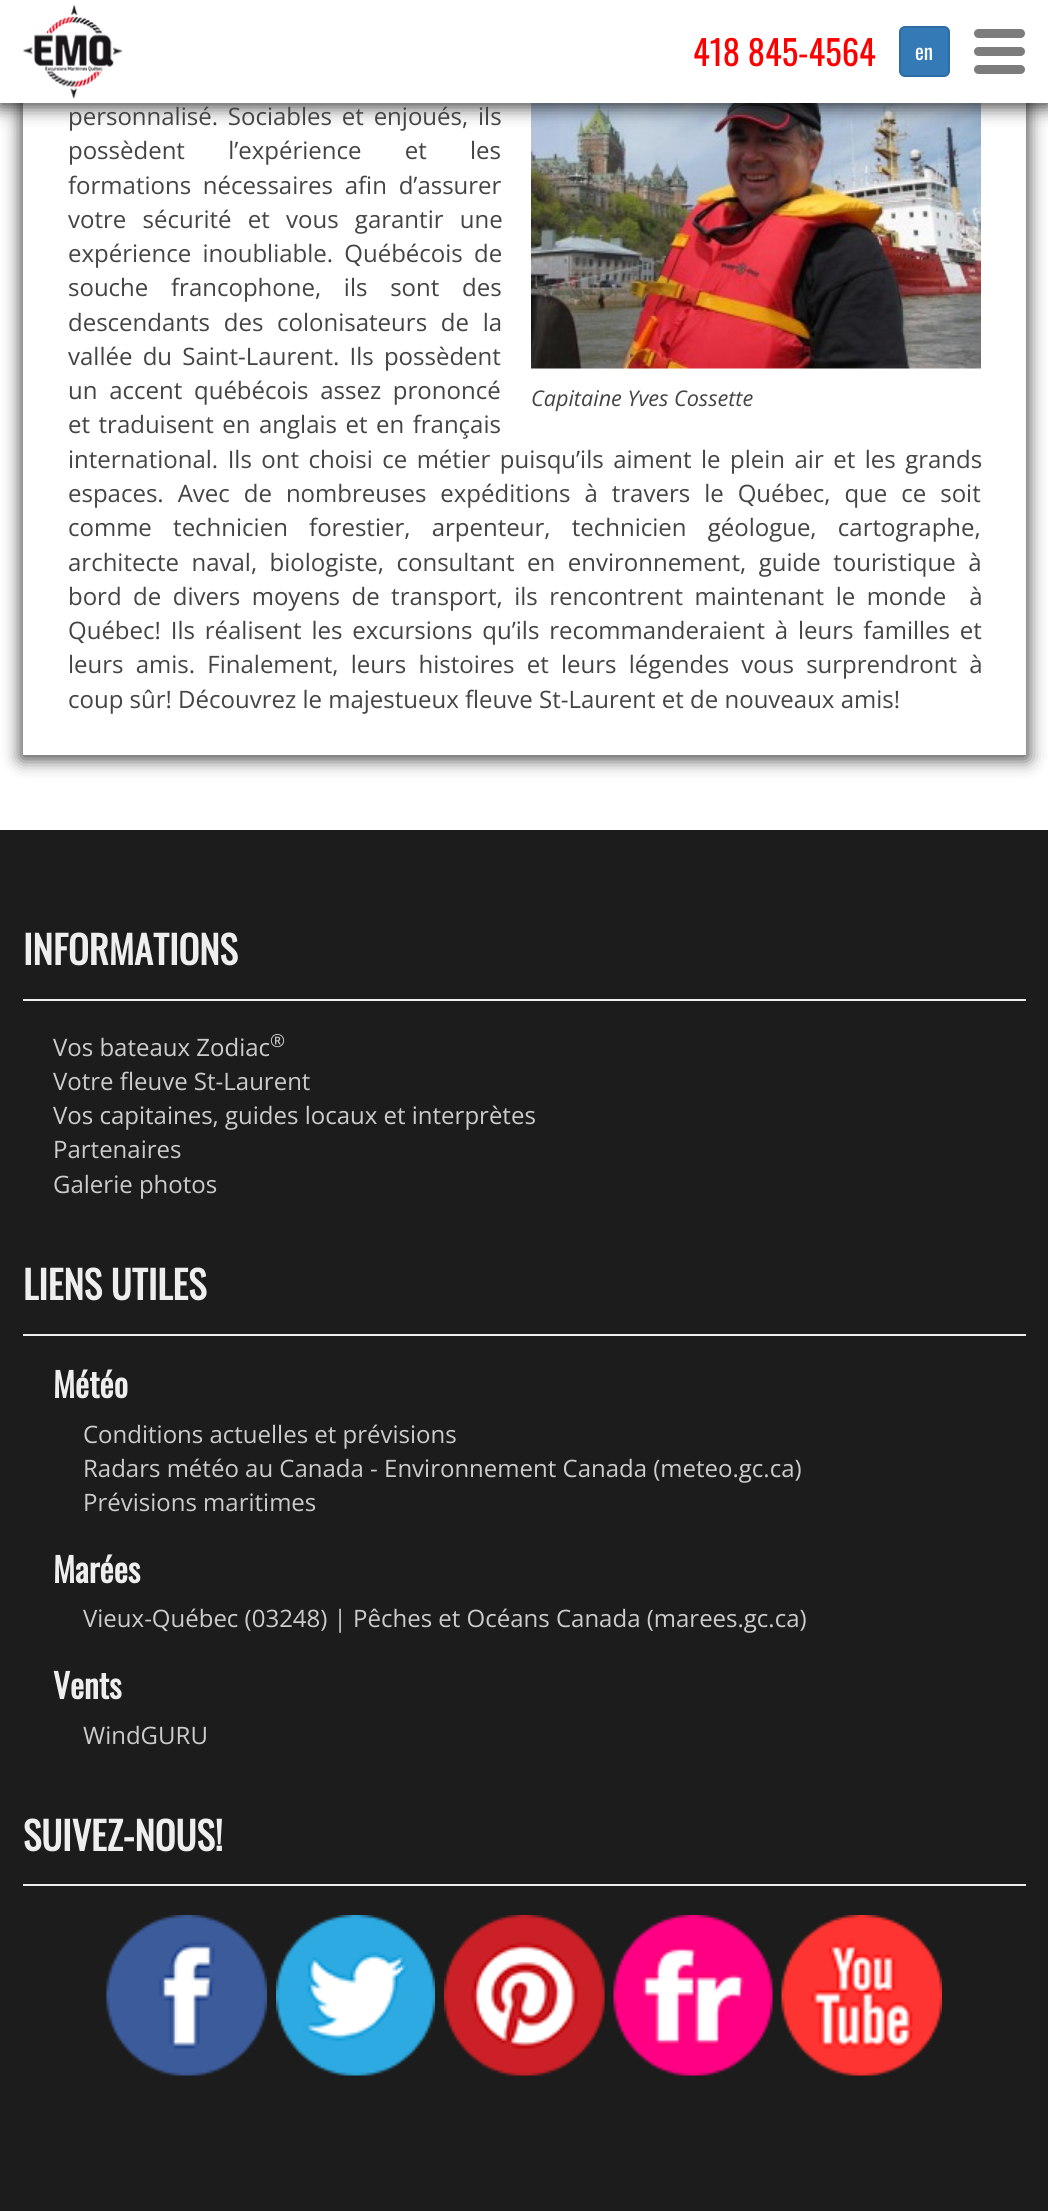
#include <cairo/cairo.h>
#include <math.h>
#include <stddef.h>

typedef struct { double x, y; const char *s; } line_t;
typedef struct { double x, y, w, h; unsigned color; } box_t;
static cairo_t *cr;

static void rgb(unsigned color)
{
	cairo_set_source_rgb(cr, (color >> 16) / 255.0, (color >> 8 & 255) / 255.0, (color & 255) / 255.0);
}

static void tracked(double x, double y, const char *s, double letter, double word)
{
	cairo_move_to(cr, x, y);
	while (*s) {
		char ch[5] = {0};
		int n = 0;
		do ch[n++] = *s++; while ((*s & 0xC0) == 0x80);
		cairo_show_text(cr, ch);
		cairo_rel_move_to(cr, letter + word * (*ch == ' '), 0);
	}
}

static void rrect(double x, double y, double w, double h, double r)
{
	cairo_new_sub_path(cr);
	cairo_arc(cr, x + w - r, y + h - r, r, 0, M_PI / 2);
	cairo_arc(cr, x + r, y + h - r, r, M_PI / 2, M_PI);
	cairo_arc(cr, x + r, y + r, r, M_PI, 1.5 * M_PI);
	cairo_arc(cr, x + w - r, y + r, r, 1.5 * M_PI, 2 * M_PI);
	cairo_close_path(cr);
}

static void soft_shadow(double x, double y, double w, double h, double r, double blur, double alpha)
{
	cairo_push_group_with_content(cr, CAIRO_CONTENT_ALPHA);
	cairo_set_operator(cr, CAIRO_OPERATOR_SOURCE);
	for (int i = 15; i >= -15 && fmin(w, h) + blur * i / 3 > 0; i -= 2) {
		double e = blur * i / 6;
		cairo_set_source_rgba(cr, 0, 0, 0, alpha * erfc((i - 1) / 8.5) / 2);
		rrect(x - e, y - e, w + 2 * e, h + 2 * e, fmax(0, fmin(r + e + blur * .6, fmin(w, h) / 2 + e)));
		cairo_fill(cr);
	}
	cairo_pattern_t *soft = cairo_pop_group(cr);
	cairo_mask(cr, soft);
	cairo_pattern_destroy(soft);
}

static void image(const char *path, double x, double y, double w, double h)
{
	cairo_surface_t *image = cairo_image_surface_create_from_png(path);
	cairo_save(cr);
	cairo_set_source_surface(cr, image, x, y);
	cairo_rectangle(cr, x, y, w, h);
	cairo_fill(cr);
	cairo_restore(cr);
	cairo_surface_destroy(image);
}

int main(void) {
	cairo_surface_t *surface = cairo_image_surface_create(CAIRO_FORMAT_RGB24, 1048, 2211);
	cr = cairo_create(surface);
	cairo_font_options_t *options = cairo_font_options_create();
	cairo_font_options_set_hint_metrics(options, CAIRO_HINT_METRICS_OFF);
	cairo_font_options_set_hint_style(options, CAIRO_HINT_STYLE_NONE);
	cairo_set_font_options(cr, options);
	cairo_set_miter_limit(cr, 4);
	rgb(0xffffff);
	cairo_paint(cr);
	rgb(0x000000);
	soft_shadow(21, -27, 1007, 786, 0, 9, 0.75);
	rgb(0xffffff);
	cairo_rectangle(cr, 23, 103, 1003, 652);
	cairo_fill(cr);
	image("img/2.png", 531, 103, 450, 266);
	rgb(0x000000);
	soft_shadow(-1, 2, 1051, 105, 0, 9, 0.75);
	rgb(0xffffff);
	cairo_rectangle(cr, 0, 0, 1048, 103);
	cairo_fill(cr);
	image("img/1.png", 23, 4, 100, 95);
	rgb(0x337ab7);
	rrect(900, 27, 49, 49, 5);
	cairo_fill_preserve(cr);
	rgb(0x2e6da4);
	cairo_stroke(cr);
	rgb(0x7c7c7c);
	rrect(974, 29, 51, 9, 4.5);
	cairo_fill(cr);
	rrect(974, 47, 51, 9, 4.5);
	cairo_fill(cr);
	rrect(974, 65, 51, 9, 4.5);
	cairo_fill(cr);
	{
		static const box_t items[] = {
			{0, 830, 1048, 1381, 0x1c1c1c},
			{23, 999, 1003, 2, 0xeeeeee},
			{23, 1334, 1003, 2, 0xeeeeee},
			{23, 1884, 1003, 2, 0xeeeeee},
		};
		for (size_t i = 0; i < sizeof items / sizeof *items; i++) {
			rgb(items[i].color);
			cairo_rectangle(cr, items[i].x, items[i].y, items[i].w, items[i].h);
			cairo_fill(cr);
		}
	}
	image("img/3.png", 106, 1915, 161, 161);
	image("img/4.png", 276, 1915, 159, 161);
	image("img/5.png", 444, 1915, 161, 161);
	image("img/6.png", 613, 1915, 160, 161);
	image("img/7.png", 781, 1915, 161, 161);
	cairo_select_font_face(cr, "Oswald", CAIRO_FONT_SLANT_NORMAL, CAIRO_FONT_WEIGHT_NORMAL);
	cairo_set_font_size(cr, 34.5);
	rgb(0xff0000);
	cairo_move_to(cr, 693, 66);
	cairo_show_text(cr, "418 845-4564");
	cairo_set_font_size(cr, 21);
	rgb(0xffffff);
	cairo_move_to(cr, 915, 60);
	cairo_show_text(cr, "en");
	cairo_select_font_face(cr, "Open Sans", CAIRO_FONT_SLANT_NORMAL, CAIRO_FONT_WEIGHT_NORMAL);
	cairo_set_font_size(cr, 24);
	rgb(0x444444);
	tracked(68, 125, "personnalisé. Sociables et enjoués, ils", 0, 3.6);
	tracked(68, 159, "possèdent l’expérience et les", 0, 37);
	tracked(68, 194, "formations nécessaires afin d’assurer", 0, 5.5);
	tracked(68, 228, "votre sécurité et vous garantir une", 0, 10);
	tracked(68, 262, "expérience inoubliable. Québécois de", 0, 5);
	tracked(68, 296, "souche francophone, ils sont des", 0, 16.5);
	tracked(68, 331, "descendants des colonisateurs de la", 0, 7.5);
	tracked(68, 365, "vallée du Saint-Laurent. Ils possèdent", 0, 4);
	tracked(68, 399, "un accent québécois assez prononcé", 0, 5.5);
	tracked(68, 433, "et traduisent en anglais et en français", 0, 2.25);
	tracked(68, 468, "international. Ils ont choisi ce métier puisqu’ils aiment le plein air et les grands", 0, 3.25);
	tracked(68, 502, "espaces. Avec de nombreuses expéditions à travers le Québec, que ce soit", 0, 7.75);
	tracked(68, 536, "comme technicien forestier, arpenteur, technicien géologue, cartographe,", 0, 15);
	tracked(68, 571, "architecte naval, biologiste, consultant en environnement, guide touristique à", 0, 6.25);
	tracked(68, 605, "bord de divers moyens de transport, ils rencontrent maintenant le monde  à", 0, 5.25);
	tracked(68, 639, "Québec! Ils réalisent les excursions qu’ils recommanderaient à leurs familles et", 0, 3.6);
	tracked(68, 673, "leurs amis. Finalement, leurs histoires et leurs légendes vous surprendront à", 0, 6);
	cairo_move_to(cr, 68, 708);
	cairo_show_text(cr, "coup sûr! Découvrez le majestueux fleuve St-Laurent et de nouveaux amis!");
	cairo_select_font_face(cr, "Open Sans", CAIRO_FONT_SLANT_ITALIC, CAIRO_FONT_WEIGHT_NORMAL);
	cairo_set_font_size(cr, 21.6);
	cairo_move_to(cr, 531, 406);
	cairo_show_text(cr, "Capitaine Yves Cossette");
	cairo_select_font_face(cr, "Oswald", CAIRO_FONT_SLANT_NORMAL, CAIRO_FONT_WEIGHT_BOLD);
	cairo_set_font_size(cr, 38.5);
	rgb(0xeeeeee);
	cairo_move_to(cr, 23, 965);
	cairo_show_text(cr, "INFORMATIONS");
	cairo_select_font_face(cr, "Open Sans", CAIRO_FONT_SLANT_NORMAL, CAIRO_FONT_WEIGHT_NORMAL);
	cairo_set_font_size(cr, 24);
	rgb(0xcccccc);
	cairo_move_to(cr, 53, 1056);
	cairo_show_text(cr, "Vos bateaux Zodiac");
	cairo_set_font_size(cr, 18);
	cairo_move_to(cr, 270, 1047);
	cairo_show_text(cr, "®");
	cairo_set_font_size(cr, 24);
	{
		static const line_t items[] = {
			{53, 1090, "Votre fleuve St-Laurent"},
			{53, 1124, "Vos capitaines, guides locaux et interprètes"},
			{53, 1158, "Partenaires"},
			{53, 1193, "Galerie photos"},
		};
		for (size_t i = 0; i < sizeof items / sizeof *items; i++) {
			cairo_move_to(cr, items[i].x, items[i].y);
			cairo_show_text(cr, items[i].s);
		}
	}
	cairo_select_font_face(cr, "Oswald", CAIRO_FONT_SLANT_NORMAL, CAIRO_FONT_WEIGHT_BOLD);
	cairo_set_font_size(cr, 38.5);
	rgb(0xeeeeee);
	cairo_move_to(cr, 23, 1300);
	cairo_show_text(cr, "LIENS UTILES");
	cairo_set_font_size(cr, 33.5);
	cairo_move_to(cr, 53, 1398);
	cairo_show_text(cr, "Météo");
	cairo_select_font_face(cr, "Open Sans", CAIRO_FONT_SLANT_NORMAL, CAIRO_FONT_WEIGHT_NORMAL);
	cairo_set_font_size(cr, 24);
	rgb(0xcccccc);
	{
		static const line_t items[] = {
			{83, 1443, "Conditions actuelles et prévisions"},
			{83, 1477, "Radars météo au Canada - Environnement Canada (meteo.gc.ca)"},
			{83, 1511, "Prévisions maritimes"},
		};
		for (size_t i = 0; i < sizeof items / sizeof *items; i++) {
			cairo_move_to(cr, items[i].x, items[i].y);
			cairo_show_text(cr, items[i].s);
		}
	}
	cairo_select_font_face(cr, "Oswald", CAIRO_FONT_SLANT_NORMAL, CAIRO_FONT_WEIGHT_BOLD);
	cairo_set_font_size(cr, 33.5);
	rgb(0xeeeeee);
	cairo_move_to(cr, 53, 1583);
	cairo_show_text(cr, "Marées");
	cairo_select_font_face(cr, "Open Sans", CAIRO_FONT_SLANT_NORMAL, CAIRO_FONT_WEIGHT_NORMAL);
	cairo_set_font_size(cr, 24);
	rgb(0xcccccc);
	cairo_move_to(cr, 83, 1627);
	cairo_show_text(cr, "Vieux-Québec (03248) | Pêches et Océans Canada (marees.gc.ca)");
	cairo_select_font_face(cr, "Oswald", CAIRO_FONT_SLANT_NORMAL, CAIRO_FONT_WEIGHT_BOLD);
	cairo_set_font_size(cr, 33.5);
	rgb(0xeeeeee);
	cairo_move_to(cr, 53, 1699);
	cairo_show_text(cr, "Vents");
	cairo_select_font_face(cr, "Open Sans", CAIRO_FONT_SLANT_NORMAL, CAIRO_FONT_WEIGHT_NORMAL);
	cairo_set_font_size(cr, 24);
	rgb(0xcccccc);
	cairo_move_to(cr, 83, 1744);
	cairo_show_text(cr, "WindGURU");
	cairo_select_font_face(cr, "Oswald", CAIRO_FONT_SLANT_NORMAL, CAIRO_FONT_WEIGHT_BOLD);
	cairo_set_font_size(cr, 38.5);
	rgb(0xeeeeee);
	cairo_move_to(cr, 23, 1851);
	cairo_show_text(cr, "SUIVEZ-NOUS!");
	cairo_surface_write_to_png(surface, "page.png");
	cairo_font_options_destroy(options);
	cairo_destroy(cr);
	cairo_surface_destroy(surface);
	return 0;
}
